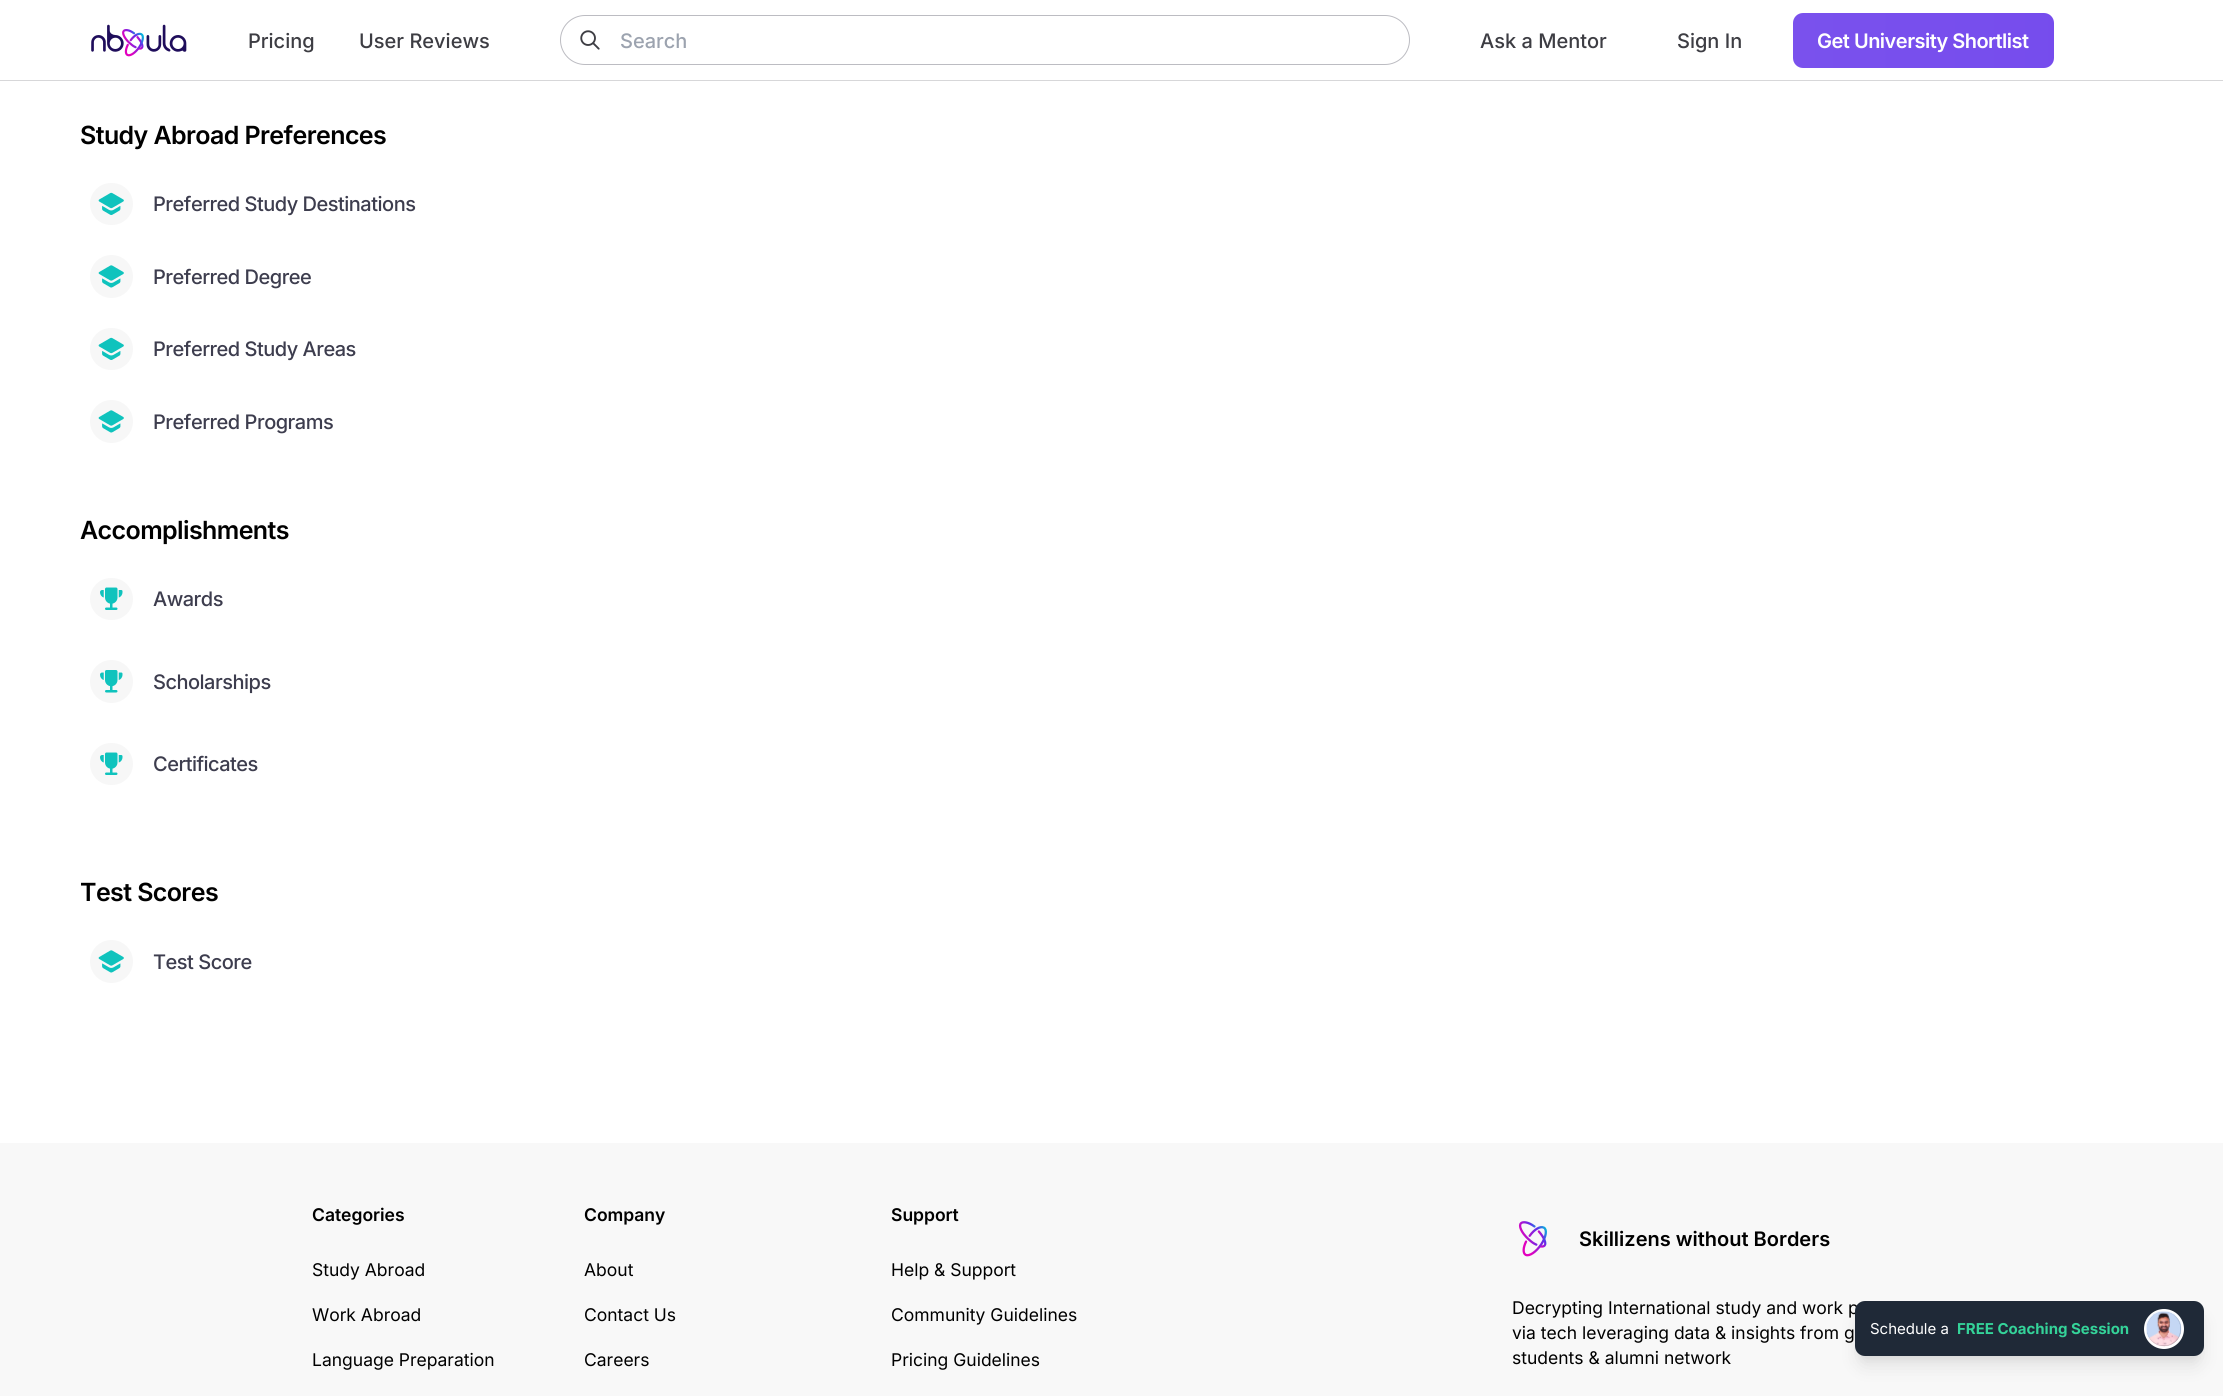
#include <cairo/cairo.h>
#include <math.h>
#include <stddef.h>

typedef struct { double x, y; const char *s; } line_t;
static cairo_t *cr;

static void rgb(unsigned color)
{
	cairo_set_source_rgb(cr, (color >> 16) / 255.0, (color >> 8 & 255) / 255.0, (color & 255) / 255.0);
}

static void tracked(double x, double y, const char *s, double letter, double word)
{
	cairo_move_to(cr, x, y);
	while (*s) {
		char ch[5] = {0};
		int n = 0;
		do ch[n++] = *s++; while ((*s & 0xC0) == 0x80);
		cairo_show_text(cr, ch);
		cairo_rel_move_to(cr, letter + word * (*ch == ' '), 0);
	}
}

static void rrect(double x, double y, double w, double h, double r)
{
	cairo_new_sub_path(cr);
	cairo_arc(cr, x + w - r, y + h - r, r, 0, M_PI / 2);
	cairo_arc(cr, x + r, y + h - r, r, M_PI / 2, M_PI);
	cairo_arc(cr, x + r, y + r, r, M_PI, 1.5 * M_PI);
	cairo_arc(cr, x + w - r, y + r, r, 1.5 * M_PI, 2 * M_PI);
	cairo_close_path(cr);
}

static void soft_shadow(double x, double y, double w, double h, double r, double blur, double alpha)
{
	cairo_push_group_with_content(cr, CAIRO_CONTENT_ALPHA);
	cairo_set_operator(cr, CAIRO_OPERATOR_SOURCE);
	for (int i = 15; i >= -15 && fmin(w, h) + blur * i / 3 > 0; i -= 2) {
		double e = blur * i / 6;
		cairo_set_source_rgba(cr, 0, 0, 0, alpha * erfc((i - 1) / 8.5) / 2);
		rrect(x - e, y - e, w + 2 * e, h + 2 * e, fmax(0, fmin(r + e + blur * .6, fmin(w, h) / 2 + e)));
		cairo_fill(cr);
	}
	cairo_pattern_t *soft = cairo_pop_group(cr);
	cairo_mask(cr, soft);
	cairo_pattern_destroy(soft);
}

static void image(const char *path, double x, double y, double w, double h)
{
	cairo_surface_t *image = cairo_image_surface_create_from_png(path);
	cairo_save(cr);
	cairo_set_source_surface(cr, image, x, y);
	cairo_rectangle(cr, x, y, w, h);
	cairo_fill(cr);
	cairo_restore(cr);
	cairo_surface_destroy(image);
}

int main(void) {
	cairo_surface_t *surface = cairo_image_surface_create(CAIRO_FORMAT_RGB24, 2223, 1396);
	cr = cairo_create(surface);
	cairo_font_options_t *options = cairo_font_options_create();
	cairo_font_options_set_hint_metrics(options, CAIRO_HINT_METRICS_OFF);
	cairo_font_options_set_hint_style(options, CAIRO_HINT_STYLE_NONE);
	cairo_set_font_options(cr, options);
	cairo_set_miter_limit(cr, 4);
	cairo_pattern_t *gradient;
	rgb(0xffffff);
	cairo_paint(cr);
	image("img/1.png", 90, 183, 43, 42);
	image("img/2.png", 90, 255, 43, 43);
	image("img/1.png", 90, 328, 43, 42);
	image("img/2.png", 90, 400, 43, 43);
	image("img/3.png", 90, 578, 43, 42);
	image("img/4.png", 90, 660, 43, 43);
	image("img/3.png", 90, 743, 43, 42);
	image("img/2.png", 90, 940, 43, 43);
	rgb(0xd7d7d9);
	cairo_rectangle(cr, 0, 80, 2223, 1);
	cairo_fill(cr);
	image("img/5.png", 91, 24, 96, 33);
	rrect(560.5, 15.5, 849, 49, 24.5);
	rgb(0xbcbcc2);
	cairo_set_line_width(cr, 1);
	cairo_stroke(cr);
	image("img/6.png", 580, 30, 20, 20);
	gradient = cairo_pattern_create_linear(1430, 40, 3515, 40);
	cairo_pattern_add_color_stop_rgba(gradient, 0, 0.498, 0.345, 0.933, 1);
	cairo_pattern_add_color_stop_rgba(gradient, 0.54, 0.435, 0.263, 0.925, 1);
	cairo_pattern_add_color_stop_rgba(gradient, 1, 0.373, 0.18, 0.918, 1);
	cairo_set_source(cr, gradient);
	cairo_pattern_destroy(gradient);
	rrect(1793, 13, 261, 55, 10);
	cairo_fill(cr);
	rgb(0xf8f8f8);
	cairo_rectangle(cr, 0, 1143, 2223, 253);
	cairo_fill(cr);
	rgb(0x000000);
	soft_shadow(1858, 1309, 343, 50, 8, 4, 0.05);
	soft_shadow(1859, 1318, 341, 47, 6, 9.5, 0.1);
	image("img/8.png", 1518, 1221, 29, 36);
	cairo_select_font_face(cr, "Inter SemiBold", CAIRO_FONT_SLANT_NORMAL, CAIRO_FONT_WEIGHT_NORMAL);
	cairo_set_font_size(cr, 25);
	rgb(0x000000);
	tracked(80, 144, "Study Abroad Preferences", -0.6, 0);
	cairo_select_font_face(cr, "Inter Medium", CAIRO_FONT_SLANT_NORMAL, CAIRO_FONT_WEIGHT_NORMAL);
	cairo_set_font_size(cr, 20);
	rgb(0x3d3d4e);
	{
		static const line_t items[] = {
			{153, 211, "Preferred Study Destinations"},
			{153, 284, "Preferred Degree"},
			{153, 356, "Preferred Study Areas"},
			{153, 429, "Preferred Programs"},
		};
		for (size_t i = 0; i < sizeof items / sizeof *items; i++) {
			tracked(items[i].x, items[i].y, items[i].s, -0.5, 0);
		}
	}
	cairo_select_font_face(cr, "Inter SemiBold", CAIRO_FONT_SLANT_NORMAL, CAIRO_FONT_WEIGHT_NORMAL);
	cairo_set_font_size(cr, 25);
	rgb(0x000000);
	tracked(80, 539, "Accomplishments", -0.6, 0);
	cairo_select_font_face(cr, "Inter Medium", CAIRO_FONT_SLANT_NORMAL, CAIRO_FONT_WEIGHT_NORMAL);
	cairo_set_font_size(cr, 20);
	rgb(0x3d3d4e);
	{
		static const line_t items[] = {
			{153, 606, "Awards"},
			{153, 689, "Scholarships"},
			{153, 771, "Certificates"},
		};
		for (size_t i = 0; i < sizeof items / sizeof *items; i++) {
			tracked(items[i].x, items[i].y, items[i].s, -0.5, 0);
		}
	}
	cairo_select_font_face(cr, "Inter SemiBold", CAIRO_FONT_SLANT_NORMAL, CAIRO_FONT_WEIGHT_NORMAL);
	cairo_set_font_size(cr, 25);
	rgb(0x000000);
	tracked(80, 901, "Test Scores", -0.6, 0);
	cairo_select_font_face(cr, "Inter Medium", CAIRO_FONT_SLANT_NORMAL, CAIRO_FONT_WEIGHT_NORMAL);
	cairo_set_font_size(cr, 20);
	rgb(0x3d3d4e);
	tracked(153, 969, "Test Score", -0.5, 0);
	rgb(0x3d3d43);
	cairo_move_to(cr, 248, 48);
	cairo_show_text(cr, "Pricing");
	cairo_move_to(cr, 359, 48);
	cairo_show_text(cr, "User Reviews");
	rgb(0x9ca3af);
	cairo_move_to(cr, 620, 48);
	cairo_show_text(cr, "Search");
	rgb(0x3d3d43);
	cairo_move_to(cr, 1480, 48);
	cairo_show_text(cr, "Ask a Mentor");
	cairo_move_to(cr, 1677, 48);
	cairo_show_text(cr, "Sign In");
	cairo_select_font_face(cr, "Inter SemiBold", CAIRO_FONT_SLANT_NORMAL, CAIRO_FONT_WEIGHT_NORMAL);
	rgb(0xffffff);
	tracked(1817, 48, "Get University Shortlist", -0.5, 0);
	cairo_set_font_size(cr, 17.5);
	rgb(0x000000);
	cairo_move_to(cr, 312, 1221);
	cairo_show_text(cr, "Categories");
	cairo_select_font_face(cr, "Inter", CAIRO_FONT_SLANT_NORMAL, CAIRO_FONT_WEIGHT_NORMAL);
	{
		static const line_t items[] = {
			{312, 1276, "Study Abroad"},
			{312, 1321, "Work Abroad"},
			{312, 1366, "Language Preparation"},
		};
		for (size_t i = 0; i < sizeof items / sizeof *items; i++) {
			cairo_move_to(cr, items[i].x, items[i].y);
			cairo_show_text(cr, items[i].s);
		}
	}
	cairo_select_font_face(cr, "Inter SemiBold", CAIRO_FONT_SLANT_NORMAL, CAIRO_FONT_WEIGHT_NORMAL);
	cairo_move_to(cr, 584, 1221);
	cairo_show_text(cr, "Company");
	cairo_select_font_face(cr, "Inter", CAIRO_FONT_SLANT_NORMAL, CAIRO_FONT_WEIGHT_NORMAL);
	{
		static const line_t items[] = {
			{584, 1276, "About"},
			{584, 1321, "Contact Us"},
			{584, 1366, "Careers"},
		};
		for (size_t i = 0; i < sizeof items / sizeof *items; i++) {
			cairo_move_to(cr, items[i].x, items[i].y);
			cairo_show_text(cr, items[i].s);
		}
	}
	cairo_select_font_face(cr, "Inter SemiBold", CAIRO_FONT_SLANT_NORMAL, CAIRO_FONT_WEIGHT_NORMAL);
	cairo_move_to(cr, 891, 1221);
	cairo_show_text(cr, "Support");
	cairo_select_font_face(cr, "Inter", CAIRO_FONT_SLANT_NORMAL, CAIRO_FONT_WEIGHT_NORMAL);
	{
		static const line_t items[] = {
			{891, 1276, "Help & Support"},
			{891, 1321, "Community Guidelines"},
			{891, 1366, "Pricing Guidelines"},
		};
		for (size_t i = 0; i < sizeof items / sizeof *items; i++) {
			cairo_move_to(cr, items[i].x, items[i].y);
			cairo_show_text(cr, items[i].s);
		}
	}
	cairo_select_font_face(cr, "Inter SemiBold", CAIRO_FONT_SLANT_NORMAL, CAIRO_FONT_WEIGHT_NORMAL);
	cairo_set_font_size(cr, 20);
	cairo_move_to(cr, 1579, 1246);
	cairo_show_text(cr, "Skillizens without Borders");
	cairo_select_font_face(cr, "Inter", CAIRO_FONT_SLANT_NORMAL, CAIRO_FONT_WEIGHT_NORMAL);
	cairo_set_font_size(cr, 17.5);
	cairo_move_to(cr, 1512, 1314);
	cairo_show_text(cr, "Decrypting International study and work p");
	rgb(0x1f2937);
	rrect(1855, 1301, 349, 55, 10);
	cairo_fill(cr);
	cairo_arc(cr, 2164, 1329, 18.5, 0, 2 * M_PI);
	rgb(0xffffff);
	cairo_set_line_width(cr, 3);
	cairo_stroke(cr);
	image("img/7.png", 2146, 1311, 36, 36);
	cairo_select_font_face(cr, "Inter", CAIRO_FONT_SLANT_NORMAL, CAIRO_FONT_WEIGHT_BOLD);
	cairo_set_font_size(cr, 15);
	rgb(0x34d399);
	cairo_move_to(cr, 1957, 1334);
	cairo_show_text(cr, "FREE Coaching Session");
	cairo_select_font_face(cr, "Inter", CAIRO_FONT_SLANT_NORMAL, CAIRO_FONT_WEIGHT_NORMAL);
	rgb(0xffffff);
	cairo_move_to(cr, 1870, 1334);
	cairo_show_text(cr, "Schedule a");
	cairo_set_font_size(cr, 17.5);
	rgb(0x000000);
	cairo_move_to(cr, 1512, 1339);
	cairo_show_text(cr, "via tech leveraging data & insights from g");
	cairo_move_to(cr, 1512, 1364);
	cairo_show_text(cr, "students & alumni network");
	cairo_surface_write_to_png(surface, "page.png");
	cairo_font_options_destroy(options);
	cairo_destroy(cr);
	cairo_surface_destroy(surface);
	return 0;
}
